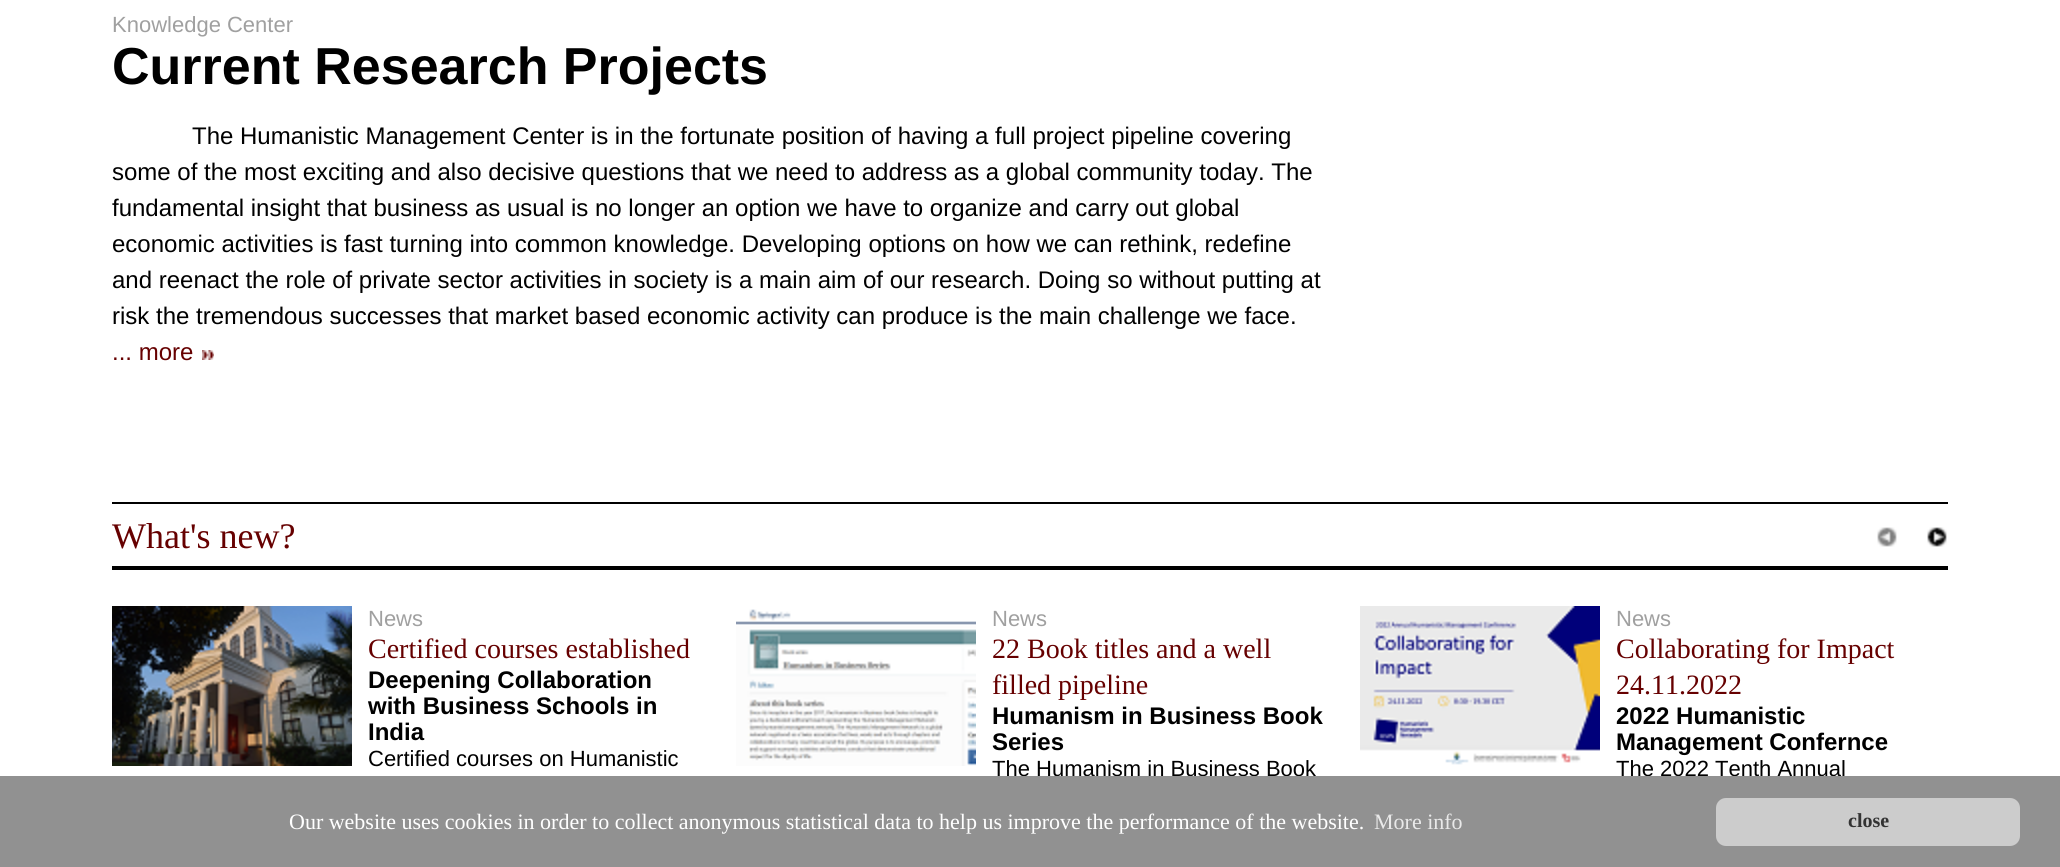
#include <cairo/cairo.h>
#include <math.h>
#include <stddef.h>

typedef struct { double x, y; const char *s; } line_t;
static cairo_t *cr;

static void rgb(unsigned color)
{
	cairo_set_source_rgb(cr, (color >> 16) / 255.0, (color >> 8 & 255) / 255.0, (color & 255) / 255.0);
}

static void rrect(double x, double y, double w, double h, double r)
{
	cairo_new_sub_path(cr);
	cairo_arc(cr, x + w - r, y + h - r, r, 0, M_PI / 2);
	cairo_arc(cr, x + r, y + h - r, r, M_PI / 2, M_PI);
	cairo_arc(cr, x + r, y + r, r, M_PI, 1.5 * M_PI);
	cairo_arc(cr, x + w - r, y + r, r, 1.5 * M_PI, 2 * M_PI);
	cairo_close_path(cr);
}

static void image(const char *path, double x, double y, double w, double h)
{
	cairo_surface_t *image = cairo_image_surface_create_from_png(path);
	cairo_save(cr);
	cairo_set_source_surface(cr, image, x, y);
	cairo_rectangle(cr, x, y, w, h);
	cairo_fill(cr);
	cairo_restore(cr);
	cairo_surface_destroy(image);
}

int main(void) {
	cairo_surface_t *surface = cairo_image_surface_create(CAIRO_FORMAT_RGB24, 2060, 867);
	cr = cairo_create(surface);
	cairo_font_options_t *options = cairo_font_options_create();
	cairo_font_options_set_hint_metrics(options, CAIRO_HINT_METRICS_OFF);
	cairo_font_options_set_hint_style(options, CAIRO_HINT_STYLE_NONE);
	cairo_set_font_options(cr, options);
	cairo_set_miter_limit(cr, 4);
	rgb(0xffffff);
	cairo_paint(cr);
	image("img/1.png", 202, 350, 12, 10);
	rgb(0x000000);
	cairo_rectangle(cr, 112, 502, 1836, 2);
	cairo_fill(cr);
	image("img/2.png", 1877, 527, 20, 20);
	image("img/3.png", 1927, 527, 20, 20);
	cairo_rectangle(cr, 112, 566, 1836, 4);
	cairo_fill(cr);
	image("img/4.png", 112, 606, 240, 160);
	image("img/5.png", 736, 609, 240, 157);
	image("img/6.png", 1360, 606, 240, 159);
	cairo_select_font_face(cr, "Liberation Sans", CAIRO_FONT_SLANT_NORMAL, CAIRO_FONT_WEIGHT_NORMAL);
	cairo_set_font_size(cr, 22);
	rgb(0xa0a0a0);
	cairo_move_to(cr, 112, 32);
	cairo_show_text(cr, "Knowledge Center");
	cairo_select_font_face(cr, "Liberation Sans", CAIRO_FONT_SLANT_NORMAL, CAIRO_FONT_WEIGHT_BOLD);
	cairo_set_font_size(cr, 52);
	rgb(0x000000);
	cairo_move_to(cr, 112, 84);
	cairo_show_text(cr, "Current Research Projects");
	cairo_select_font_face(cr, "Liberation Sans", CAIRO_FONT_SLANT_NORMAL, CAIRO_FONT_WEIGHT_NORMAL);
	cairo_set_font_size(cr, 24);
	{
		static const line_t items[] = {
			{192, 144, "The Humanistic Management Center is in the fortunate position of having a full project pipeline covering"},
			{112, 180, "some of the most exciting and also decisive questions that we need to address as a global community today. The"},
			{112, 216, "fundamental insight that business as usual is no longer an option we have to organize and carry out global"},
			{112, 252, "economic activities is fast turning into common knowledge. Developing options on how we can rethink, redefine"},
			{112, 288, "and reenact the role of private sector activities in society is a main aim of our research. Doing so without putting at"},
			{112, 324, "risk the tremendous successes that market based economic activity can produce is the main challenge we face."},
		};
		for (size_t i = 0; i < sizeof items / sizeof *items; i++) {
			cairo_move_to(cr, items[i].x, items[i].y);
			cairo_show_text(cr, items[i].s);
		}
	}
	rgb(0x660000);
	cairo_move_to(cr, 112, 360);
	cairo_show_text(cr, "... more");
	cairo_select_font_face(cr, "Liberation Serif", CAIRO_FONT_SLANT_NORMAL, CAIRO_FONT_WEIGHT_NORMAL);
	cairo_set_font_size(cr, 36);
	cairo_move_to(cr, 112, 548);
	cairo_show_text(cr, "What's new?");
	cairo_select_font_face(cr, "Liberation Sans", CAIRO_FONT_SLANT_NORMAL, CAIRO_FONT_WEIGHT_NORMAL);
	cairo_set_font_size(cr, 22);
	rgb(0xa0a0a0);
	cairo_move_to(cr, 368, 626);
	cairo_show_text(cr, "News");
	cairo_select_font_face(cr, "Liberation Serif", CAIRO_FONT_SLANT_NORMAL, CAIRO_FONT_WEIGHT_NORMAL);
	cairo_set_font_size(cr, 28);
	rgb(0x660000);
	cairo_move_to(cr, 368, 658);
	cairo_show_text(cr, "Certified courses established");
	cairo_select_font_face(cr, "Liberation Sans", CAIRO_FONT_SLANT_NORMAL, CAIRO_FONT_WEIGHT_BOLD);
	cairo_set_font_size(cr, 24);
	rgb(0x000000);
	{
		static const line_t items[] = {
			{368, 688, "Deepening Collaboration"},
			{368, 714, "with Business Schools in"},
			{368, 740, "India"},
		};
		for (size_t i = 0; i < sizeof items / sizeof *items; i++) {
			cairo_move_to(cr, items[i].x, items[i].y);
			cairo_show_text(cr, items[i].s);
		}
	}
	cairo_select_font_face(cr, "Liberation Sans", CAIRO_FONT_SLANT_NORMAL, CAIRO_FONT_WEIGHT_NORMAL);
	cairo_set_font_size(cr, 22);
	cairo_move_to(cr, 368, 766);
	cairo_show_text(cr, "Certified courses on Humanistic");
	rgb(0xa0a0a0);
	cairo_move_to(cr, 992, 626);
	cairo_show_text(cr, "News");
	cairo_select_font_face(cr, "Liberation Serif", CAIRO_FONT_SLANT_NORMAL, CAIRO_FONT_WEIGHT_NORMAL);
	cairo_set_font_size(cr, 28);
	rgb(0x660000);
	cairo_move_to(cr, 992, 658);
	cairo_show_text(cr, "22 Book titles and a well");
	cairo_move_to(cr, 992, 694);
	cairo_show_text(cr, "filled pipeline");
	cairo_select_font_face(cr, "Liberation Sans", CAIRO_FONT_SLANT_NORMAL, CAIRO_FONT_WEIGHT_BOLD);
	cairo_set_font_size(cr, 24);
	rgb(0x000000);
	cairo_move_to(cr, 992, 724);
	cairo_show_text(cr, "Humanism in Business Book");
	cairo_move_to(cr, 992, 750);
	cairo_show_text(cr, "Series");
	cairo_select_font_face(cr, "Liberation Sans", CAIRO_FONT_SLANT_NORMAL, CAIRO_FONT_WEIGHT_NORMAL);
	cairo_set_font_size(cr, 22);
	cairo_move_to(cr, 992, 776);
	cairo_show_text(cr, "The Humanism in Business Book");
	rgb(0xa0a0a0);
	cairo_move_to(cr, 1616, 626);
	cairo_show_text(cr, "News");
	cairo_select_font_face(cr, "Liberation Serif", CAIRO_FONT_SLANT_NORMAL, CAIRO_FONT_WEIGHT_NORMAL);
	cairo_set_font_size(cr, 28);
	rgb(0x660000);
	cairo_move_to(cr, 1616, 658);
	cairo_show_text(cr, "Collaborating for Impact");
	cairo_move_to(cr, 1616, 694);
	cairo_show_text(cr, "24.11.2022");
	cairo_select_font_face(cr, "Liberation Sans", CAIRO_FONT_SLANT_NORMAL, CAIRO_FONT_WEIGHT_BOLD);
	cairo_set_font_size(cr, 24);
	rgb(0x000000);
	cairo_move_to(cr, 1616, 724);
	cairo_show_text(cr, "2022 Humanistic");
	cairo_move_to(cr, 1616, 750);
	cairo_show_text(cr, "Management Confernce");
	cairo_select_font_face(cr, "Liberation Sans", CAIRO_FONT_SLANT_NORMAL, CAIRO_FONT_WEIGHT_NORMAL);
	cairo_set_font_size(cr, 22);
	cairo_move_to(cr, 1616, 776);
	cairo_show_text(cr, "The 2022 Tenth Annual");
	rgb(0x919191);
	cairo_rectangle(cr, 0, 776, 2060, 91);
	cairo_fill(cr);
	cairo_select_font_face(cr, "Liberation Serif", CAIRO_FONT_SLANT_NORMAL, CAIRO_FONT_WEIGHT_NORMAL);
	rgb(0xffffff);
	cairo_move_to(cr, 289, 829);
	cairo_show_text(cr, "Our website uses cookies in order to collect anonymous statistical data to help us improve the performance of the website.");
	rgb(0xe9e9e9);
	cairo_move_to(cr, 1374, 829);
	cairo_show_text(cr, "More info");
	rgb(0xcccccc);
	rrect(1716, 798, 304, 48, 10);
	cairo_fill(cr);
	cairo_select_font_face(cr, "Liberation Serif", CAIRO_FONT_SLANT_NORMAL, CAIRO_FONT_WEIGHT_BOLD);
	cairo_set_font_size(cr, 20);
	rgb(0x333333);
	cairo_move_to(cr, 1848, 827);
	cairo_show_text(cr, "close");
	cairo_surface_write_to_png(surface, "page.png");
	cairo_font_options_destroy(options);
	cairo_destroy(cr);
	cairo_surface_destroy(surface);
	return 0;
}
